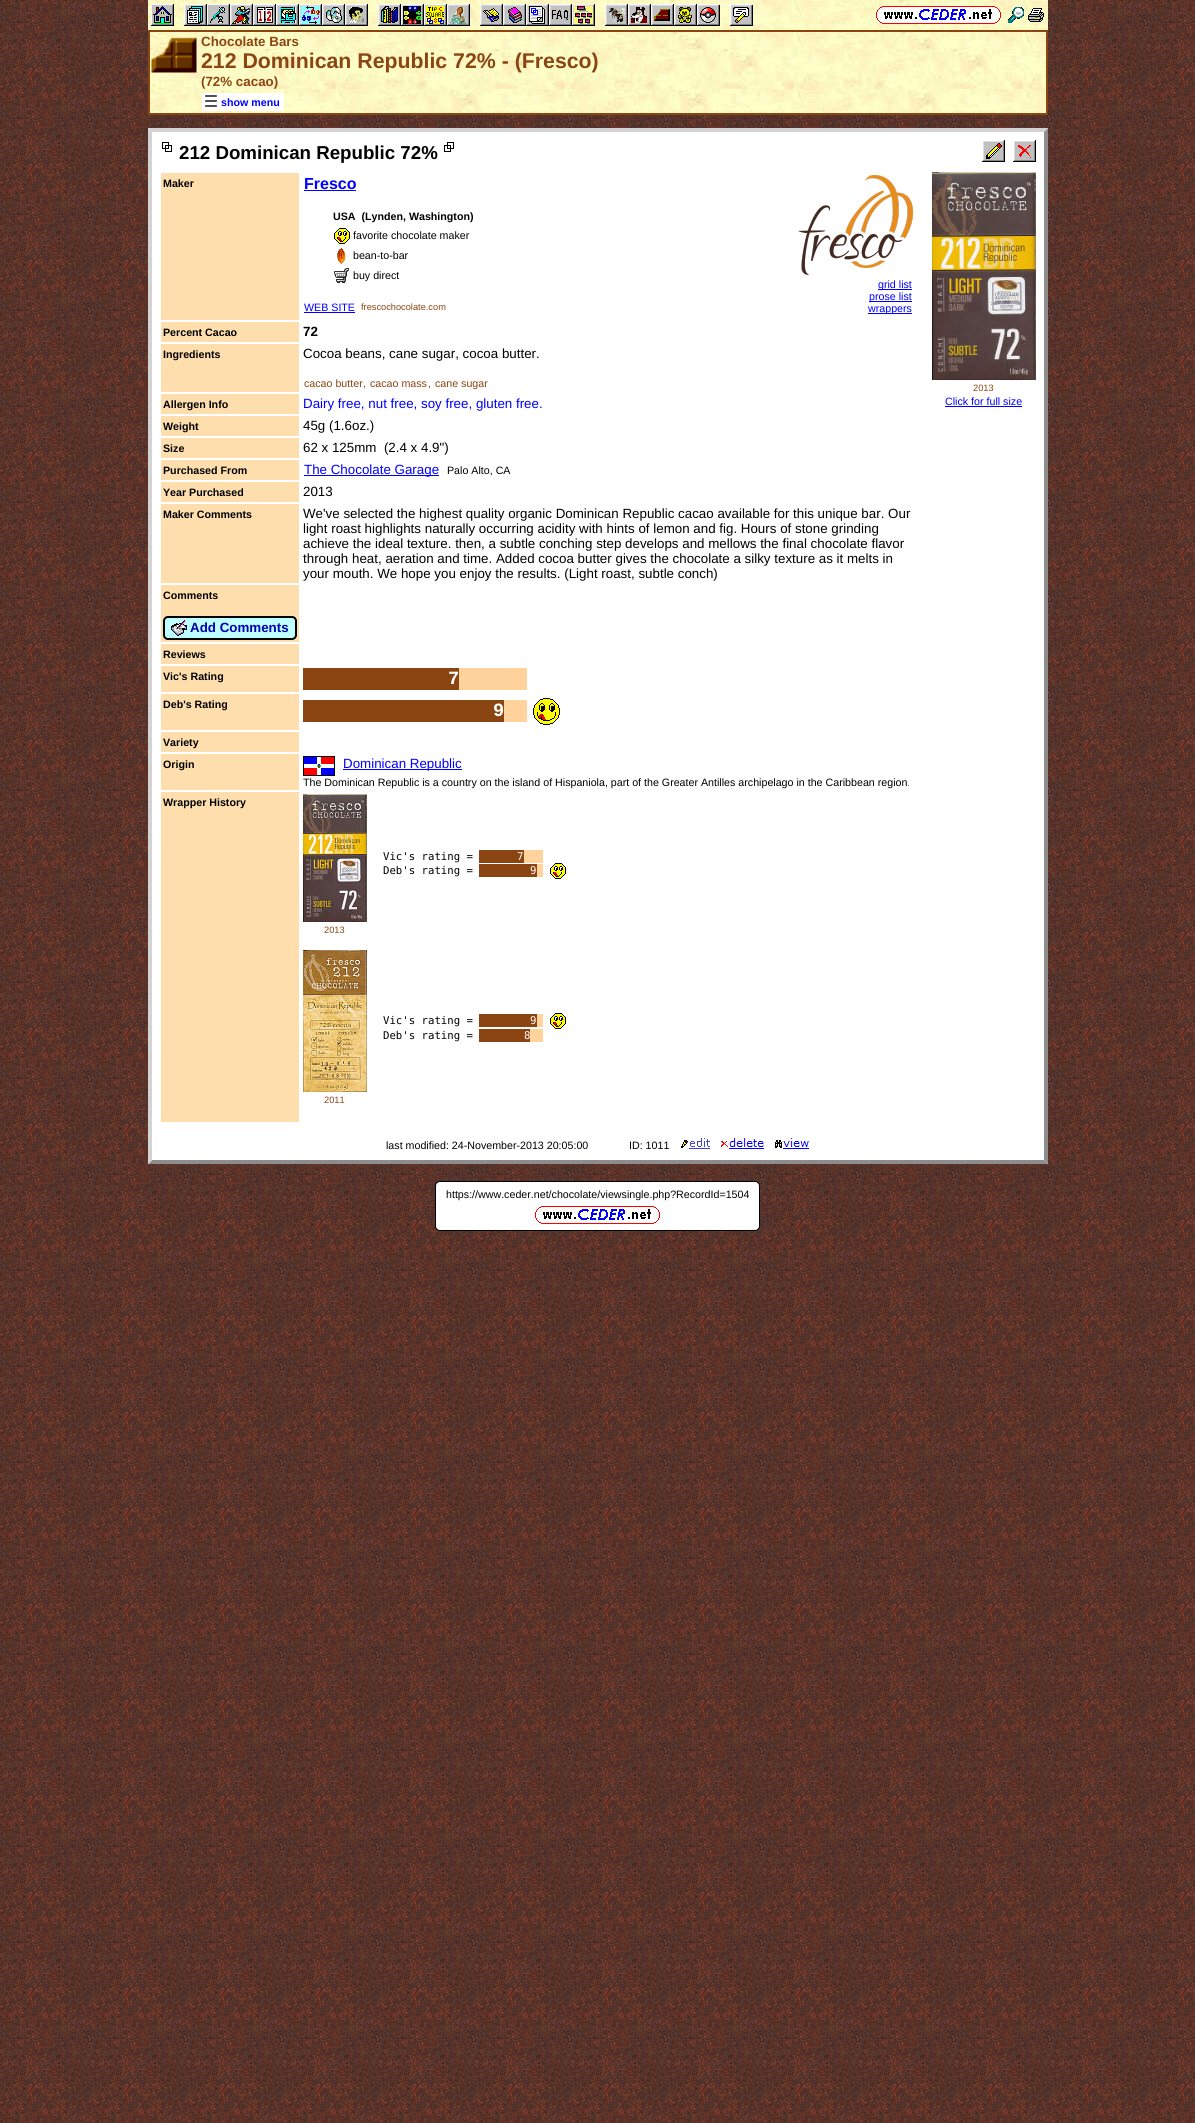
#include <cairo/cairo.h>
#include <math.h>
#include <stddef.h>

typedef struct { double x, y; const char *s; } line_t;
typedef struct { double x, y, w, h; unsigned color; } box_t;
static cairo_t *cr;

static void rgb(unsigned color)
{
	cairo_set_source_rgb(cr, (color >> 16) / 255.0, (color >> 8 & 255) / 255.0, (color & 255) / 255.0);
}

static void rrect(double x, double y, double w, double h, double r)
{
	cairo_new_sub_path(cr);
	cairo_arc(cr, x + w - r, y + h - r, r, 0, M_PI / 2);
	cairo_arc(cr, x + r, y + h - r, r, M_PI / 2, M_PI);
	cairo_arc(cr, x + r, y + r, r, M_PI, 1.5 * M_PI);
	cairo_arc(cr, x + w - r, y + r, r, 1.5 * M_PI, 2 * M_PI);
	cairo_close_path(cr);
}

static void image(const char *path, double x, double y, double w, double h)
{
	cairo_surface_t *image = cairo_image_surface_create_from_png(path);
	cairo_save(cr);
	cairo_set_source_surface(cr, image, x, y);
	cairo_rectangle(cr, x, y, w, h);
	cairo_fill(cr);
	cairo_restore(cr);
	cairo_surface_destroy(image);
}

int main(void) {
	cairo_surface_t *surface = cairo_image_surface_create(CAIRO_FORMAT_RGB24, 1195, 2123);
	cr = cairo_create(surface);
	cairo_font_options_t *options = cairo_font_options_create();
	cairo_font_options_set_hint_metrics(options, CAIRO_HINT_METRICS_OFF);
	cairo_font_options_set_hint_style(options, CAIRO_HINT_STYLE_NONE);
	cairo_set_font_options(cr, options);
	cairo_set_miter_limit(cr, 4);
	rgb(0xffffff);
	cairo_paint(cr);
	image("img/1.png", 0, 0, 1195, 2123);
	image("img/2.png", 148, 0, 900, 30);
	image("img/3.png", 876, 6, 125, 18);
	image("img/4.png", 1008, 7, 16, 16);
	image("img/5.png", 1028, 8, 16, 14);
	image("img/6.png", 151, 4, 602, 22);
	image("img/7.png", 150, 32, 896, 81);
	cairo_rectangle(cr, 149, 31, 898, 83);
	rgb(0x8b4513);
	cairo_stroke(cr);
	image("img/8.png", 151, 37, 46, 36);
	image("img/9.png", 201, 49, 841, 40);
	rgb(0xffffff);
	cairo_rectangle(cr, 202, 93, 82, 18);
	cairo_fill(cr);
	image("img/10.png", 205, 95, 12, 12);
	cairo_rectangle(cr, 148, 128, 900, 1036);
	cairo_fill(cr);
	rgb(0xd3d3d3);
	cairo_new_path(cr);
	cairo_move_to(cr, 148, 128);
	cairo_line_to(cr, 1048, 128);
	cairo_line_to(cr, 1044, 132);
	cairo_line_to(cr, 152, 132);
	cairo_close_path(cr);
	cairo_fill(cr);
	rgb(0x8d8d8d);
	cairo_new_path(cr);
	cairo_move_to(cr, 1048, 128);
	cairo_line_to(cr, 1048, 1164);
	cairo_line_to(cr, 1044, 1160);
	cairo_line_to(cr, 1044, 132);
	cairo_close_path(cr);
	cairo_fill(cr);
	cairo_new_path(cr);
	cairo_move_to(cr, 1048, 1164);
	cairo_line_to(cr, 148, 1164);
	cairo_line_to(cr, 152, 1160);
	cairo_line_to(cr, 1044, 1160);
	cairo_close_path(cr);
	cairo_fill(cr);
	rgb(0xd3d3d3);
	cairo_new_path(cr);
	cairo_move_to(cr, 148, 1164);
	cairo_line_to(cr, 148, 128);
	cairo_line_to(cr, 152, 132);
	cairo_line_to(cr, 152, 1160);
	cairo_close_path(cr);
	cairo_fill(cr);
	image("img/11.png", 162, 142, 10, 10);
	image("img/12.png", 444, 142, 10, 10);
	image("img/13.png", 982, 140, 23, 22);
	image("img/14.png", 1013, 140, 23, 22);
	rgb(0xffdead);
	cairo_rectangle(cr, 161, 173, 138, 147);
	cairo_fill(cr);
	rgb(0x0000ff);
	cairo_rectangle(cr, 304, 190, 52, 1);
	cairo_fill(cr);
	image("img/15.png", 334, 228, 16, 16);
	image("img/16.png", 337, 248, 9, 16);
	image("img/17.png", 334, 268, 15, 15);
	cairo_rectangle(cr, 304, 312, 51, 1);
	cairo_fill(cr);
	image("img/18.png", 798, 175, 115, 100);
	{
		static const box_t items[] = {
			{878, 289, 34, 1, 0x0000ff},
			{869, 301, 43, 1, 0x0000ff},
			{868, 313, 44, 1, 0x0000ff},
			{161, 322, 138, 20, 0xffdead},
			{161, 344, 138, 48, 0xffdead},
			{161, 394, 138, 20, 0xffdead},
			{161, 416, 138, 20, 0xffdead},
			{161, 438, 138, 20, 0xffdead},
			{161, 460, 138, 20, 0xffdead},
			{304, 475, 135, 1, 0x0000ff},
			{161, 482, 138, 20, 0xffdead},
			{161, 504, 138, 79, 0xffdead},
			{161, 585, 138, 57, 0xffdead},
		};
		for (size_t i = 0; i < sizeof items / sizeof *items; i++) {
			rgb(items[i].color);
			cairo_rectangle(cr, items[i].x, items[i].y, items[i].w, items[i].h);
			cairo_fill(cr);
		}
	}
	rgb(0xbfffff);
	rrect(164, 617, 132, 22, 4);
	cairo_fill_preserve(cr);
	rgb(0x000000);
	cairo_stroke(cr);
	image("img/19.png", 171, 620, 16, 16);
	{
		static const box_t items[] = {
			{161, 644, 138, 20, 0xffdead},
			{161, 666, 138, 26, 0xffdead},
			{303, 668, 156, 22, 0x8b4513},
			{459, 668, 68, 22, 0xffd39b},
			{161, 694, 138, 36, 0xffdead},
			{303, 700, 201, 22, 0x8b4513},
			{504, 700, 23, 22, 0xffd39b},
		};
		for (size_t i = 0; i < sizeof items / sizeof *items; i++) {
			rgb(items[i].color);
			cairo_rectangle(cr, items[i].x, items[i].y, items[i].w, items[i].h);
			cairo_fill(cr);
		}
	}
	image("img/20.png", 533, 698, 27, 27);
	rgb(0xffdead);
	cairo_rectangle(cr, 161, 732, 138, 20);
	cairo_fill(cr);
	cairo_rectangle(cr, 161, 754, 138, 36);
	cairo_fill(cr);
	image("img/21.png", 303, 756, 32, 20);
	{
		static const box_t items[] = {
			{343, 769, 119, 1, 0x0000ff},
			{161, 792, 138, 330, 0xffdead},
			{479, 850, 45, 13, 0x8b4513},
			{524, 850, 19, 13, 0xffd39b},
			{479, 864, 58, 13, 0x8b4513},
			{537, 864, 6, 13, 0xffd39b},
		};
		for (size_t i = 0; i < sizeof items / sizeof *items; i++) {
			rgb(items[i].color);
			cairo_rectangle(cr, items[i].x, items[i].y, items[i].w, items[i].h);
			cairo_fill(cr);
		}
	}
	image("img/15.png", 550, 863, 16, 16);
	image("img/22.png", 303, 794, 64, 128);
	rgb(0x8b4513);
	cairo_rectangle(cr, 479, 1014, 58, 13);
	cairo_fill(cr);
	rgb(0xffd39b);
	cairo_rectangle(cr, 537, 1014, 6, 13);
	cairo_fill(cr);
	image("img/15.png", 550, 1013, 16, 16);
	rgb(0x8b4513);
	cairo_rectangle(cr, 479, 1029, 51, 13);
	cairo_fill(cr);
	rgb(0xffd39b);
	cairo_rectangle(cr, 530, 1029, 13, 13);
	cairo_fill(cr);
	image("img/23.png", 303, 950, 64, 142);
	image("img/24.png", 932, 172, 104, 208);
	rgb(0x0000ff);
	cairo_rectangle(cr, 945, 406, 77, 1);
	cairo_fill(cr);
	image("img/25.png", 681, 1138, 29, 11);
	image("img/26.png", 721, 1138, 43, 11);
	image("img/27.png", 775, 1138, 34, 11);
	rgb(0xffffff);
	rrect(435.5, 1181.5, 324, 49, 4.5);
	cairo_fill_preserve(cr);
	rgb(0x000000);
	cairo_set_line_width(cr, 1);
	cairo_stroke(cr);
	image("img/28.png", 535, 1206, 125, 18);
	cairo_select_font_face(cr, "Liberation Sans", CAIRO_FONT_SLANT_NORMAL, CAIRO_FONT_WEIGHT_BOLD);
	cairo_set_font_size(cr, 13.35);
	rgb(0x8b4513);
	cairo_move_to(cr, 201, 46);
	cairo_show_text(cr, "Chocolate Bars");
	cairo_set_font_size(cr, 21.3);
	cairo_move_to(cr, 201, 68);
	cairo_show_text(cr, "212 Dominican Republic 72% - (Fresco)");
	cairo_set_font_size(cr, 13.35);
	cairo_move_to(cr, 201, 86);
	cairo_show_text(cr, "(72% cacao)");
	cairo_set_font_size(cr, 10.67);
	rgb(0x0000ff);
	cairo_move_to(cr, 221, 106);
	cairo_show_text(cr, "show menu");
	cairo_set_font_size(cr, 18.7);
	rgb(0x000000);
	cairo_move_to(cr, 179, 159);
	cairo_show_text(cr, "212 Dominican Republic 72%");
	cairo_set_font_size(cr, 10.67);
	cairo_move_to(cr, 163, 187);
	cairo_show_text(cr, "Maker");
	cairo_set_font_size(cr, 16);
	rgb(0x0000ff);
	cairo_move_to(cr, 304, 189);
	cairo_show_text(cr, "Fresco");
	cairo_set_font_size(cr, 10.67);
	rgb(0x000000);
	cairo_move_to(cr, 333, 220);
	cairo_show_text(cr, "USA  (Lynden, Washington)");
	cairo_select_font_face(cr, "Liberation Sans", CAIRO_FONT_SLANT_NORMAL, CAIRO_FONT_WEIGHT_NORMAL);
	{
		static const line_t items[] = {
			{353, 239, "favorite chocolate maker"},
			{353, 259, "bean-to-bar"},
			{353, 279, "buy direct"},
		};
		for (size_t i = 0; i < sizeof items / sizeof *items; i++) {
			cairo_move_to(cr, items[i].x, items[i].y);
			cairo_show_text(cr, items[i].s);
		}
	}
	rgb(0x0000ff);
	cairo_move_to(cr, 304, 311);
	cairo_show_text(cr, "WEB SITE");
	cairo_set_font_size(cr, 9.25);
	rgb(0x8b4513);
	cairo_move_to(cr, 361, 310);
	cairo_show_text(cr, "frescochocolate.com");
	cairo_set_font_size(cr, 10.67);
	rgb(0x0000ff);
	{
		static const line_t items[] = {
			{878, 288, "grid list"},
			{869, 300, "prose list"},
			{868, 312, "wrappers"},
		};
		for (size_t i = 0; i < sizeof items / sizeof *items; i++) {
			cairo_move_to(cr, items[i].x, items[i].y);
			cairo_show_text(cr, items[i].s);
		}
	}
	cairo_select_font_face(cr, "Liberation Sans", CAIRO_FONT_SLANT_NORMAL, CAIRO_FONT_WEIGHT_BOLD);
	rgb(0x000000);
	cairo_move_to(cr, 163, 336);
	cairo_show_text(cr, "Percent Cacao");
	cairo_set_font_size(cr, 13.35);
	cairo_move_to(cr, 303, 336);
	cairo_show_text(cr, "72");
	cairo_set_font_size(cr, 10.67);
	cairo_move_to(cr, 163, 358);
	cairo_show_text(cr, "Ingredients");
	cairo_select_font_face(cr, "Liberation Sans", CAIRO_FONT_SLANT_NORMAL, CAIRO_FONT_WEIGHT_NORMAL);
	cairo_set_font_size(cr, 13.35);
	cairo_move_to(cr, 303, 358);
	cairo_show_text(cr, "Cocoa beans, cane sugar, cocoa butter.");
	cairo_set_font_size(cr, 10.67);
	rgb(0x8b4513);
	{
		static const line_t items[] = {
			{304, 387, "cacao butter"},
			{363, 387, ","},
			{370, 387, "cacao mass"},
			{428, 387, ","},
			{435, 387, "cane sugar"},
		};
		for (size_t i = 0; i < sizeof items / sizeof *items; i++) {
			cairo_move_to(cr, items[i].x, items[i].y);
			cairo_show_text(cr, items[i].s);
		}
	}
	cairo_select_font_face(cr, "Liberation Sans", CAIRO_FONT_SLANT_NORMAL, CAIRO_FONT_WEIGHT_BOLD);
	rgb(0x000000);
	cairo_move_to(cr, 163, 408);
	cairo_show_text(cr, "Allergen Info");
	cairo_select_font_face(cr, "Liberation Sans", CAIRO_FONT_SLANT_NORMAL, CAIRO_FONT_WEIGHT_NORMAL);
	cairo_set_font_size(cr, 13.35);
	rgb(0x0000ff);
	cairo_move_to(cr, 303, 408);
	cairo_show_text(cr, "Dairy free, nut free, soy free, gluten free.");
	cairo_select_font_face(cr, "Liberation Sans", CAIRO_FONT_SLANT_NORMAL, CAIRO_FONT_WEIGHT_BOLD);
	cairo_set_font_size(cr, 10.67);
	rgb(0x000000);
	cairo_move_to(cr, 163, 430);
	cairo_show_text(cr, "Weight");
	cairo_select_font_face(cr, "Liberation Sans", CAIRO_FONT_SLANT_NORMAL, CAIRO_FONT_WEIGHT_NORMAL);
	cairo_set_font_size(cr, 13.35);
	cairo_move_to(cr, 303, 430);
	cairo_show_text(cr, "45g (1.6oz.)");
	cairo_select_font_face(cr, "Liberation Sans", CAIRO_FONT_SLANT_NORMAL, CAIRO_FONT_WEIGHT_BOLD);
	cairo_set_font_size(cr, 10.67);
	cairo_move_to(cr, 163, 452);
	cairo_show_text(cr, "Size");
	cairo_select_font_face(cr, "Liberation Sans", CAIRO_FONT_SLANT_NORMAL, CAIRO_FONT_WEIGHT_NORMAL);
	cairo_set_font_size(cr, 13.35);
	cairo_move_to(cr, 303, 452);
	cairo_show_text(cr, "62 x 125mm  (2.4 x 4.9\")");
	cairo_select_font_face(cr, "Liberation Sans", CAIRO_FONT_SLANT_NORMAL, CAIRO_FONT_WEIGHT_BOLD);
	cairo_set_font_size(cr, 10.67);
	cairo_move_to(cr, 163, 474);
	cairo_show_text(cr, "Purchased From");
	cairo_select_font_face(cr, "Liberation Sans", CAIRO_FONT_SLANT_NORMAL, CAIRO_FONT_WEIGHT_NORMAL);
	cairo_set_font_size(cr, 13.35);
	rgb(0x0000ff);
	cairo_move_to(cr, 304, 474);
	cairo_show_text(cr, "The Chocolate Garage");
	cairo_set_font_size(cr, 10.67);
	rgb(0x000000);
	cairo_move_to(cr, 447, 474);
	cairo_show_text(cr, "Palo Alto, CA");
	cairo_select_font_face(cr, "Liberation Sans", CAIRO_FONT_SLANT_NORMAL, CAIRO_FONT_WEIGHT_BOLD);
	cairo_move_to(cr, 163, 496);
	cairo_show_text(cr, "Year Purchased");
	cairo_select_font_face(cr, "Liberation Sans", CAIRO_FONT_SLANT_NORMAL, CAIRO_FONT_WEIGHT_NORMAL);
	cairo_set_font_size(cr, 13.35);
	cairo_move_to(cr, 303, 496);
	cairo_show_text(cr, "2013");
	cairo_select_font_face(cr, "Liberation Sans", CAIRO_FONT_SLANT_NORMAL, CAIRO_FONT_WEIGHT_BOLD);
	cairo_set_font_size(cr, 10.67);
	cairo_move_to(cr, 163, 518);
	cairo_show_text(cr, "Maker Comments");
	cairo_select_font_face(cr, "Liberation Sans", CAIRO_FONT_SLANT_NORMAL, CAIRO_FONT_WEIGHT_NORMAL);
	cairo_set_font_size(cr, 13.35);
	{
		static const line_t items[] = {
			{303, 518, "We've selected the highest quality organic Dominican Republic cacao available for this unique bar. Our"},
			{303, 533, "light roast highlights naturally occurring acidity with hints of lemon and fig. Hours of stone grinding"},
			{303, 548, "achieve the ideal texture. then, a subtle conching step develops and mellows the final chocolate flavor"},
			{303, 563, "through heat, aeration and time. Added cocoa butter gives the chocolate a silky texture as it melts in"},
			{303, 578, "your mouth. We hope you enjoy the results. (Light roast, subtle conch)"},
		};
		for (size_t i = 0; i < sizeof items / sizeof *items; i++) {
			cairo_move_to(cr, items[i].x, items[i].y);
			cairo_show_text(cr, items[i].s);
		}
	}
	cairo_select_font_face(cr, "Liberation Sans", CAIRO_FONT_SLANT_NORMAL, CAIRO_FONT_WEIGHT_BOLD);
	cairo_set_font_size(cr, 10.67);
	cairo_move_to(cr, 163, 599);
	cairo_show_text(cr, "Comments");
	cairo_set_font_size(cr, 13.35);
	rgb(0x0000b0);
	cairo_move_to(cr, 190, 632);
	cairo_show_text(cr, "Add Comments");
	cairo_set_font_size(cr, 10.67);
	rgb(0x000000);
	cairo_move_to(cr, 163, 658);
	cairo_show_text(cr, "Reviews");
	cairo_move_to(cr, 163, 680);
	cairo_show_text(cr, "Vic's Rating");
	cairo_select_font_face(cr, "Liberation Mono", CAIRO_FONT_SLANT_NORMAL, CAIRO_FONT_WEIGHT_BOLD);
	cairo_set_font_size(cr, 18.7);
	rgb(0xffffff);
	cairo_move_to(cr, 448, 684);
	cairo_show_text(cr, "7");
	cairo_select_font_face(cr, "Liberation Sans", CAIRO_FONT_SLANT_NORMAL, CAIRO_FONT_WEIGHT_BOLD);
	cairo_set_font_size(cr, 10.67);
	rgb(0x000000);
	cairo_move_to(cr, 163, 708);
	cairo_show_text(cr, "Deb's Rating");
	cairo_select_font_face(cr, "Liberation Mono", CAIRO_FONT_SLANT_NORMAL, CAIRO_FONT_WEIGHT_BOLD);
	cairo_set_font_size(cr, 18.7);
	rgb(0xffffff);
	cairo_move_to(cr, 493, 716);
	cairo_show_text(cr, "9");
	cairo_select_font_face(cr, "Liberation Sans", CAIRO_FONT_SLANT_NORMAL, CAIRO_FONT_WEIGHT_BOLD);
	cairo_set_font_size(cr, 10.67);
	rgb(0x000000);
	cairo_move_to(cr, 163, 746);
	cairo_show_text(cr, "Variety");
	cairo_move_to(cr, 163, 768);
	cairo_show_text(cr, "Origin");
	cairo_select_font_face(cr, "Liberation Sans", CAIRO_FONT_SLANT_NORMAL, CAIRO_FONT_WEIGHT_NORMAL);
	cairo_set_font_size(cr, 13.35);
	rgb(0x0000ff);
	cairo_move_to(cr, 343, 768);
	cairo_show_text(cr, "Dominican Republic");
	cairo_set_font_size(cr, 10.67);
	rgb(0x000000);
	cairo_move_to(cr, 303, 786);
	cairo_show_text(cr, "The Dominican Republic is a country on the island of Hispaniola, part of the Greater Antilles archipelago in the Caribbean region.");
	cairo_select_font_face(cr, "Liberation Sans", CAIRO_FONT_SLANT_NORMAL, CAIRO_FONT_WEIGHT_BOLD);
	cairo_move_to(cr, 163, 806);
	cairo_show_text(cr, "Wrapper History");
	cairo_select_font_face(cr, "DejaVu Sans Mono", CAIRO_FONT_SLANT_NORMAL, CAIRO_FONT_WEIGHT_NORMAL);
	cairo_move_to(cr, 383, 860);
	cairo_show_text(cr, "Vic's rating =");
	rgb(0xffffff);
	cairo_move_to(cr, 517, 860);
	cairo_show_text(cr, "7");
	rgb(0x000000);
	cairo_move_to(cr, 383, 874);
	cairo_show_text(cr, "Deb's rating =");
	rgb(0xffffff);
	cairo_move_to(cr, 530, 874);
	cairo_show_text(cr, "9");
	cairo_select_font_face(cr, "Liberation Sans", CAIRO_FONT_SLANT_NORMAL, CAIRO_FONT_WEIGHT_NORMAL);
	cairo_set_font_size(cr, 9.25);
	rgb(0x8b4513);
	cairo_move_to(cr, 324, 933);
	cairo_show_text(cr, "2013");
	cairo_select_font_face(cr, "DejaVu Sans Mono", CAIRO_FONT_SLANT_NORMAL, CAIRO_FONT_WEIGHT_NORMAL);
	cairo_set_font_size(cr, 10.67);
	rgb(0x000000);
	cairo_move_to(cr, 383, 1024);
	cairo_show_text(cr, "Vic's rating =");
	rgb(0xffffff);
	cairo_move_to(cr, 530, 1024);
	cairo_show_text(cr, "9");
	rgb(0x000000);
	cairo_move_to(cr, 383, 1039);
	cairo_show_text(cr, "Deb's rating =");
	rgb(0xffffff);
	cairo_move_to(cr, 524, 1039);
	cairo_show_text(cr, "8");
	cairo_select_font_face(cr, "Liberation Sans", CAIRO_FONT_SLANT_NORMAL, CAIRO_FONT_WEIGHT_NORMAL);
	cairo_set_font_size(cr, 9.25);
	rgb(0x8b4513);
	cairo_move_to(cr, 324, 1103);
	cairo_show_text(cr, "2011");
	cairo_move_to(cr, 973, 391);
	cairo_show_text(cr, "2013");
	cairo_set_font_size(cr, 10.67);
	rgb(0x0000ff);
	cairo_move_to(cr, 945, 405);
	cairo_show_text(cr, "Click for full size");
	rgb(0x000000);
	{
		static const line_t items[] = {
			{386, 1149, "last modified: 24-November-2013 20:05:00"},
			{629, 1149, "ID: 1011"},
			{446, 1198, "https://www.ceder.net/chocolate/viewsingle.php?RecordId=1504"},
		};
		for (size_t i = 0; i < sizeof items / sizeof *items; i++) {
			cairo_move_to(cr, items[i].x, items[i].y);
			cairo_show_text(cr, items[i].s);
		}
	}
	cairo_surface_write_to_png(surface, "page.png");
	cairo_font_options_destroy(options);
	cairo_destroy(cr);
	cairo_surface_destroy(surface);
	return 0;
}
